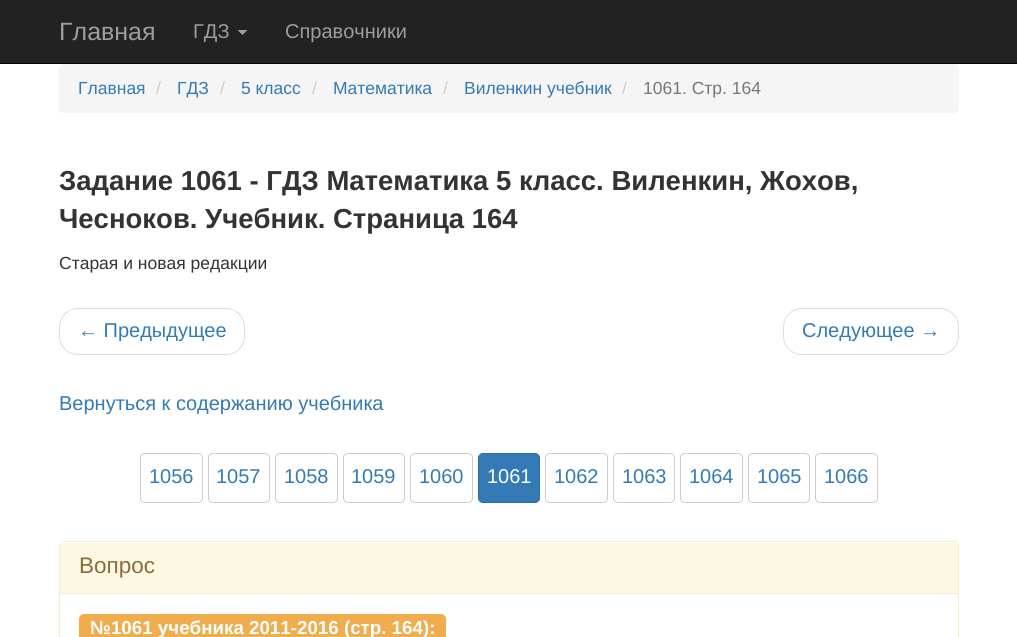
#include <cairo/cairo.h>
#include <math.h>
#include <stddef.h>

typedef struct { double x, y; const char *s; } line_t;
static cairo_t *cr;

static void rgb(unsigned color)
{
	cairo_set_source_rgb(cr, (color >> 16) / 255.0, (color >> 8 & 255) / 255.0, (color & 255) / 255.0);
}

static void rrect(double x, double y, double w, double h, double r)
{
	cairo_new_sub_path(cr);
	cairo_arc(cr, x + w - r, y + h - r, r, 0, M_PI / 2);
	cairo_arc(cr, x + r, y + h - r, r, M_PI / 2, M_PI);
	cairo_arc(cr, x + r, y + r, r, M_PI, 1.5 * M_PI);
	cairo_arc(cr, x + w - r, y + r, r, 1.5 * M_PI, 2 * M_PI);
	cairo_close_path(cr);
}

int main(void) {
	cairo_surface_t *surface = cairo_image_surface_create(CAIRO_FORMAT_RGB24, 1017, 637);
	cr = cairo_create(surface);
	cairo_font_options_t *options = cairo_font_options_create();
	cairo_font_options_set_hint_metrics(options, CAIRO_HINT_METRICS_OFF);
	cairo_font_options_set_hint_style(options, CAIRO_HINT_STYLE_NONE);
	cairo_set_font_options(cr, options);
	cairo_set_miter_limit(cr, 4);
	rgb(0xffffff);
	cairo_paint(cr);
	rgb(0x222222);
	cairo_rectangle(cr, 0, 0, 1017, 63);
	cairo_fill(cr);
	rgb(0x080808);
	cairo_rectangle(cr, 0, 63, 1017, 1);
	cairo_fill(cr);
	rgb(0x9d9d9d);
	cairo_new_path(cr);
	cairo_move_to(cr, 237.5, 30);
	cairo_line_to(cr, 247.5, 30);
	cairo_line_to(cr, 242.5, 35);
	cairo_close_path(cr);
	cairo_fill(cr);
	rgb(0xf5f5f5);
	rrect(59, 64, 900, 49, 5);
	cairo_fill(cr);
	rrect(59.5, 308.5, 185, 46, 18.5);
	rgb(0xdddddd);
	cairo_set_line_width(cr, 1);
	cairo_stroke(cr);
	rrect(783.5, 308.5, 175, 46, 18.5);
	cairo_stroke(cr);
	rrect(140.5, 453.5, 62, 49, 4.5);
	rgb(0xcccccc);
	cairo_stroke(cr);
	rrect(208.5, 453.5, 61, 49, 4.5);
	cairo_stroke(cr);
	rrect(275.5, 453.5, 62, 49, 4.5);
	cairo_stroke(cr);
	rrect(343.5, 453.5, 61, 49, 4.5);
	cairo_stroke(cr);
	rrect(410.5, 453.5, 62, 49, 4.5);
	cairo_stroke(cr);
	rgb(0x337ab7);
	rrect(478.5, 453.5, 61, 49, 4.5);
	cairo_fill_preserve(cr);
	rgb(0x2e6da4);
	cairo_stroke(cr);
	rrect(545.5, 453.5, 62, 49, 4.5);
	rgb(0xcccccc);
	cairo_stroke(cr);
	rrect(613.5, 453.5, 61, 49, 4.5);
	cairo_stroke(cr);
	rrect(680.5, 453.5, 62, 49, 4.5);
	cairo_stroke(cr);
	rrect(748.5, 453.5, 61, 49, 4.5);
	cairo_stroke(cr);
	rrect(815.5, 453.5, 62, 49, 4.5);
	cairo_stroke(cr);
	rrect(59.5, 541.5, 899, 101, 4.5);
	rgb(0xfaebcc);
	cairo_stroke(cr);
	rgb(0xfcf8e3);
	cairo_new_path(cr);
	cairo_move_to(cr, 64, 543);
	cairo_line_to(cr, 954, 543);
	cairo_curve_to(cr, 956, 543, 958, 545, 958, 547);
	cairo_line_to(cr, 958, 594);
	cairo_line_to(cr, 60, 594);
	cairo_line_to(cr, 60, 547);
	cairo_curve_to(cr, 60, 545, 62, 543, 64, 543);
	cairo_close_path(cr);
	cairo_fill(cr);
	rgb(0xfaebcc);
	cairo_rectangle(cr, 60, 593, 898, 1);
	cairo_fill(cr);
	rgb(0xf0ad4e);
	rrect(79, 614, 367, 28, 5);
	cairo_fill(cr);
	cairo_select_font_face(cr, "Liberation Sans", CAIRO_FONT_SLANT_NORMAL, CAIRO_FONT_WEIGHT_NORMAL);
	cairo_set_font_size(cr, 25);
	rgb(0x9d9d9d);
	cairo_move_to(cr, 59, 40);
	cairo_show_text(cr, "Главная");
	cairo_set_font_size(cr, 20);
	cairo_move_to(cr, 193, 38);
	cairo_show_text(cr, "ГДЗ");
	cairo_move_to(cr, 285, 38);
	cairo_show_text(cr, "Справочники");
	cairo_set_font_size(cr, 17.5);
	rgb(0x337ab7);
	cairo_move_to(cr, 78, 94);
	cairo_show_text(cr, "Главная");
	rgb(0xcccccc);
	cairo_move_to(cr, 156, 94);
	cairo_show_text(cr, "/");
	rgb(0x337ab7);
	cairo_move_to(cr, 177, 94);
	cairo_show_text(cr, "ГДЗ");
	rgb(0xcccccc);
	cairo_move_to(cr, 220, 94);
	cairo_show_text(cr, "/");
	rgb(0x337ab7);
	cairo_move_to(cr, 241, 94);
	cairo_show_text(cr, "5 класс");
	rgb(0xcccccc);
	cairo_move_to(cr, 312, 94);
	cairo_show_text(cr, "/");
	rgb(0x337ab7);
	cairo_move_to(cr, 333, 94);
	cairo_show_text(cr, "Математика");
	rgb(0xcccccc);
	cairo_move_to(cr, 443, 94);
	cairo_show_text(cr, "/");
	rgb(0x337ab7);
	cairo_move_to(cr, 464, 94);
	cairo_show_text(cr, "Виленкин учебник");
	rgb(0xcccccc);
	cairo_move_to(cr, 622, 94);
	cairo_show_text(cr, "/");
	rgb(0x777777);
	cairo_move_to(cr, 643, 94);
	cairo_show_text(cr, "1061. Стр. 164");
	cairo_select_font_face(cr, "Liberation Sans", CAIRO_FONT_SLANT_NORMAL, CAIRO_FONT_WEIGHT_BOLD);
	cairo_set_font_size(cr, 27.5);
	rgb(0x333333);
	cairo_move_to(cr, 59, 190);
	cairo_show_text(cr, "Задание 1061 - ГДЗ Математика 5 класс. Виленкин, Жохов,");
	cairo_move_to(cr, 59, 228);
	cairo_show_text(cr, "Чесноков. Учебник. Страница 164");
	cairo_select_font_face(cr, "Liberation Sans", CAIRO_FONT_SLANT_NORMAL, CAIRO_FONT_WEIGHT_NORMAL);
	cairo_set_font_size(cr, 17.5);
	cairo_move_to(cr, 59, 269);
	cairo_show_text(cr, "Старая и новая редакции");
	cairo_set_font_size(cr, 20);
	rgb(0x337ab7);
	{
		static const line_t items[] = {
			{78, 337, "← Предыдущее"},
			{802, 337, "Следующее →"},
			{59, 410, "Вернуться к содержанию учебника"},
			{149, 483, "1056"},
			{216, 483, "1057"},
			{284, 483, "1058"},
			{351, 483, "1059"},
			{419, 483, "1060"},
		};
		for (size_t i = 0; i < sizeof items / sizeof *items; i++) {
			cairo_move_to(cr, items[i].x, items[i].y);
			cairo_show_text(cr, items[i].s);
		}
	}
	rgb(0xffffff);
	cairo_move_to(cr, 487, 483);
	cairo_show_text(cr, "1061");
	rgb(0x337ab7);
	{
		static const line_t items[] = {
			{554, 483, "1062"},
			{622, 483, "1063"},
			{689, 483, "1064"},
			{757, 483, "1065"},
			{824, 483, "1066"},
		};
		for (size_t i = 0; i < sizeof items / sizeof *items; i++) {
			cairo_move_to(cr, items[i].x, items[i].y);
			cairo_show_text(cr, items[i].s);
		}
	}
	cairo_set_font_size(cr, 22.5);
	rgb(0x8a6d3b);
	cairo_move_to(cr, 79, 573);
	cairo_show_text(cr, "Вопрос");
	cairo_select_font_face(cr, "Liberation Sans", CAIRO_FONT_SLANT_NORMAL, CAIRO_FONT_WEIGHT_BOLD);
	cairo_set_font_size(cr, 18.75);
	rgb(0xffffff);
	cairo_move_to(cr, 90, 634);
	cairo_show_text(cr, "№1061 учебника 2011-2016 (стр. 164):");
	cairo_surface_write_to_png(surface, "page.png");
	cairo_font_options_destroy(options);
	cairo_destroy(cr);
	cairo_surface_destroy(surface);
	return 0;
}
